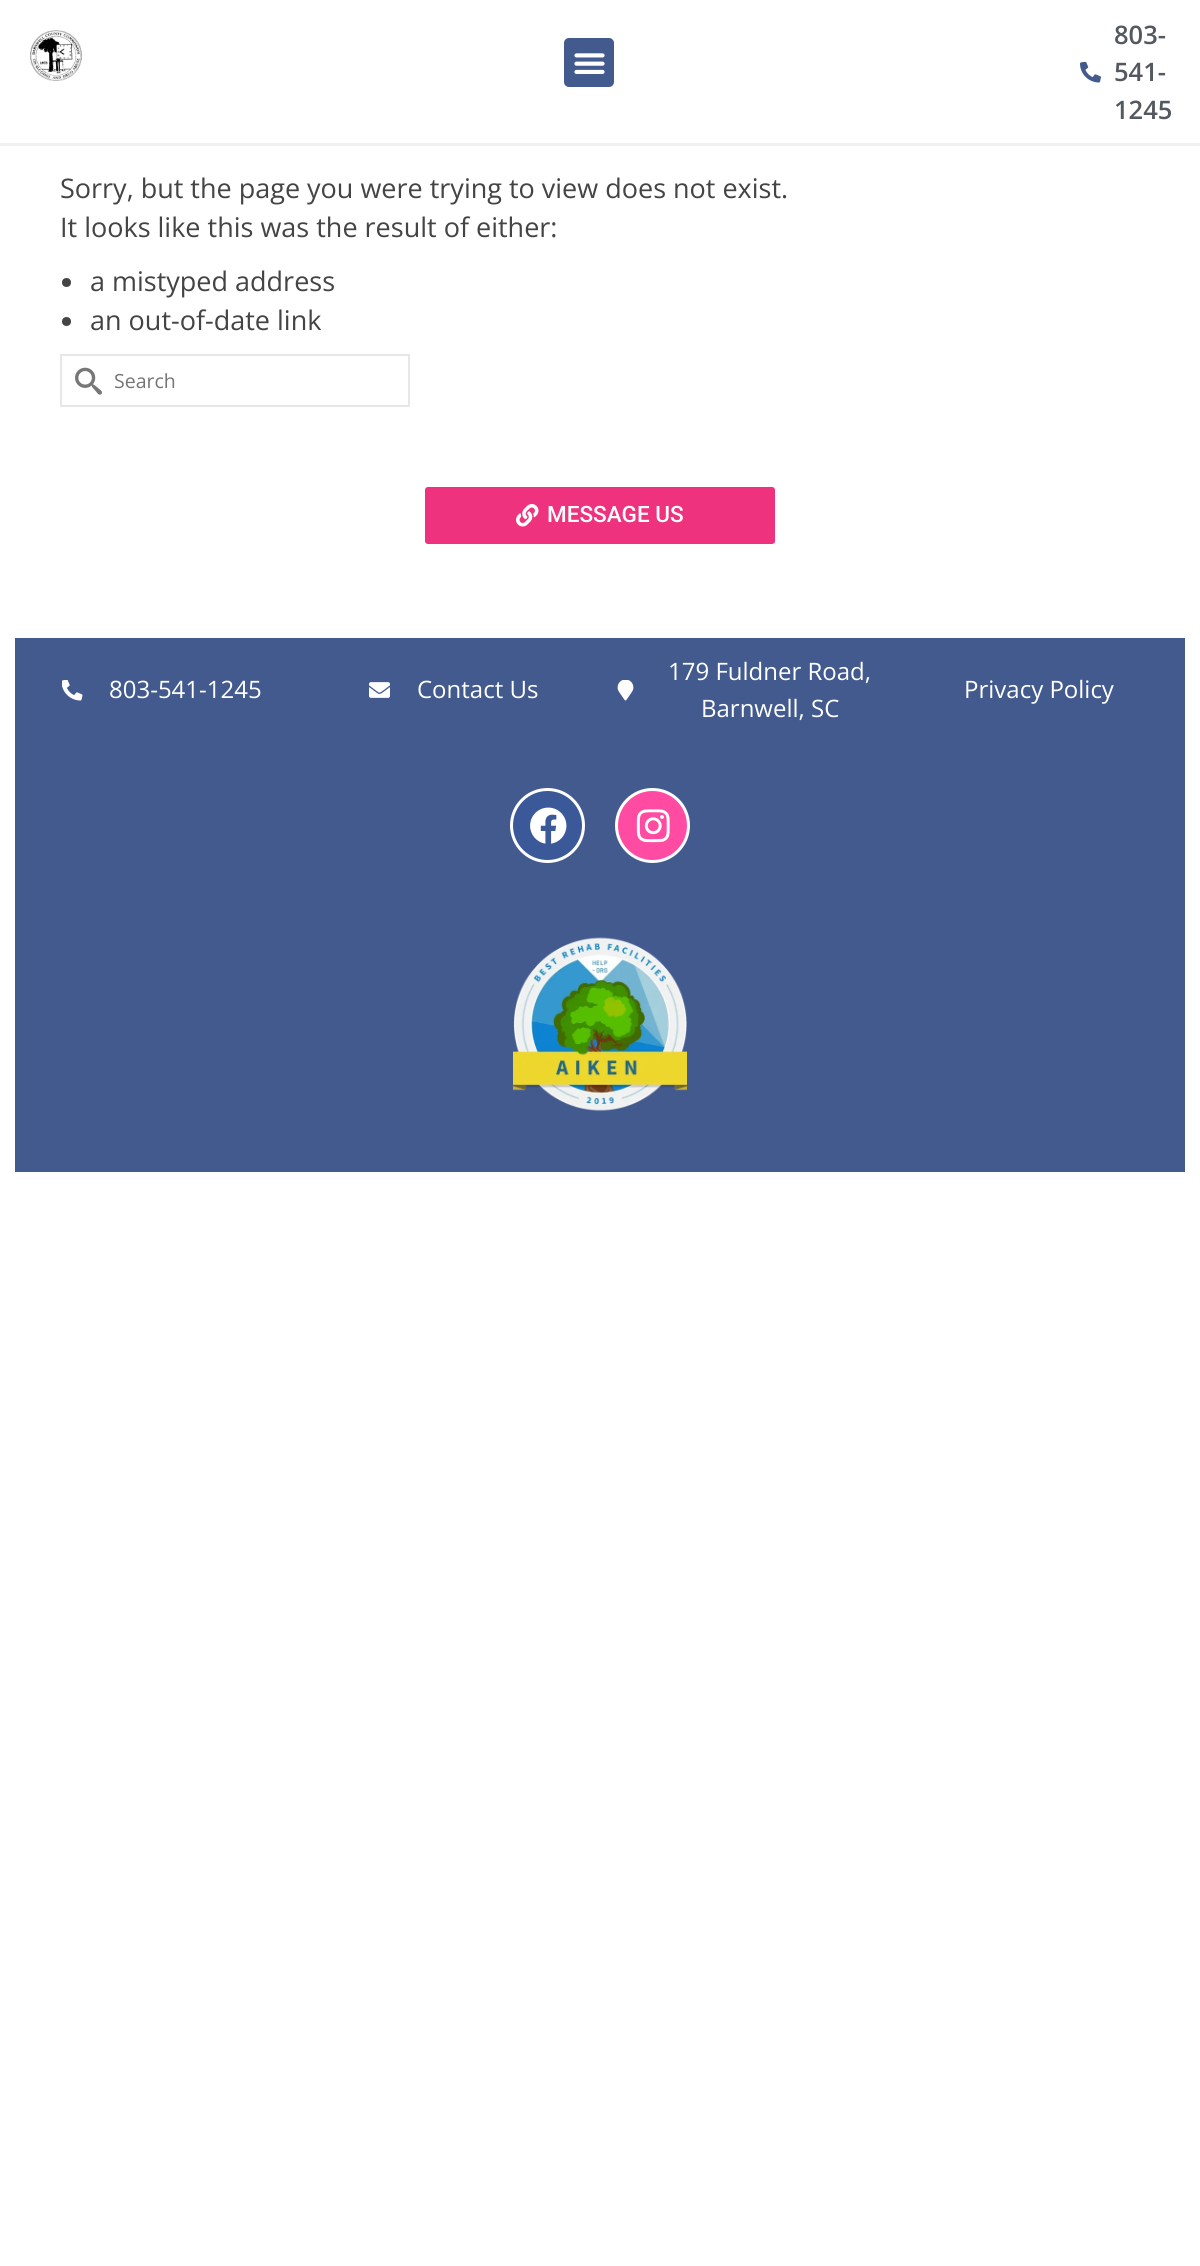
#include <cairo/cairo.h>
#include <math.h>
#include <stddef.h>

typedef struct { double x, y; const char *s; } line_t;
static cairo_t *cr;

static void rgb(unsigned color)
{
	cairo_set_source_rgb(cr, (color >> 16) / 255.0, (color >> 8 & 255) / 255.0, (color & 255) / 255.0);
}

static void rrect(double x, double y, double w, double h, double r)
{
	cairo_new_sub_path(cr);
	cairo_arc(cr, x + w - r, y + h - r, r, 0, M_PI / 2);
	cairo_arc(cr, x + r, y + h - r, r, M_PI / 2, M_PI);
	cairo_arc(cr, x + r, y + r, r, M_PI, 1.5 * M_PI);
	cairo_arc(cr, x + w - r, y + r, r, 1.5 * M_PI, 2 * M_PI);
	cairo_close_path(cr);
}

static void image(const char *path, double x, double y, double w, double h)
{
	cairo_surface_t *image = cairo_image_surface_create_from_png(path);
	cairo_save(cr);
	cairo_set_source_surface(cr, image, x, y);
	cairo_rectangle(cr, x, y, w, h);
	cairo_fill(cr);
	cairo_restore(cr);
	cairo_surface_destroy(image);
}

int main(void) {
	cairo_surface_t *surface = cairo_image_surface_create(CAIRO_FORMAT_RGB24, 1200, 2266);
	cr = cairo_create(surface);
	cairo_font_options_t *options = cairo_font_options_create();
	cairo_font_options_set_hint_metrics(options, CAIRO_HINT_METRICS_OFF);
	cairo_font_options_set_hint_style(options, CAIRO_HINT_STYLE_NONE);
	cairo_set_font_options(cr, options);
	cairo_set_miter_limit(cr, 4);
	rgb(0xffffff);
	cairo_paint(cr);
	rgb(0xf1f1f1);
	cairo_rectangle(cr, 0, 143, 1200, 3);
	cairo_fill(cr);
	image("img/1.png", 30, 30, 52, 51);
	rgb(0x435a8e);
	rrect(564, 38, 50, 49, 5);
	cairo_fill(cr);
	image("img/2.png", 574, 53, 31, 21);
	image("img/3.png", 1080, 62, 21, 21);
	rgb(0x444444);
	cairo_arc(cr, 66.5, 282.5, 4.5, 0, 2 * M_PI);
	cairo_fill(cr);
	cairo_arc(cr, 66.5, 321.5, 4.5, 0, 2 * M_PI);
	cairo_fill(cr);
	cairo_rectangle(cr, 61, 355, 348, 51);
	rgb(0xe7e7e7);
	cairo_stroke(cr);
	image("img/4.png", 75, 367, 27, 28);
	rgb(0xef327e);
	rrect(422.5, 484.5, 355, 62, 5.5);
	cairo_fill_preserve(cr);
	rgb(0xffffff);
	cairo_set_line_width(cr, 5);
	cairo_stroke(cr);
	image("img/5.png", 516, 504, 23, 23);
	rgb(0x435a8e);
	cairo_rectangle(cr, 15, 638, 1170, 534);
	cairo_fill(cr);
	image("img/6.png", 62, 680, 21, 21);
	image("img/7.png", 369, 682, 21, 16);
	image("img/8.png", 617, 680, 17, 21);
	rgb(0x3b5998);
	cairo_arc(cr, 547.5, 825.5, 36, 0, 2 * M_PI);
	cairo_fill_preserve(cr);
	rgb(0xffffff);
	cairo_set_line_width(cr, 3);
	cairo_stroke(cr);
	image("img/9.png", 530, 807, 37, 37);
	rgb(0xff4ca2);
	cairo_arc(cr, 652.5, 825.5, 36, 0, 2 * M_PI);
	cairo_fill_preserve(cr);
	rgb(0xffffff);
	cairo_stroke(cr);
	image("img/10.png", 636, 809, 34, 34);
	image("img/11.png", 513, 937, 174, 174);
	cairo_select_font_face(cr, "Open Sans SemiBold", CAIRO_FONT_SLANT_NORMAL, CAIRO_FONT_WEIGHT_NORMAL);
	cairo_set_font_size(cr, 25.5);
	rgb(0x54595f);
	{
		static const line_t items[] = {
			{1114, 44, "803-"},
			{1114, 81, "541-"},
			{1114, 119, "1245"},
		};
		for (size_t i = 0; i < sizeof items / sizeof *items; i++) {
			cairo_move_to(cr, items[i].x, items[i].y);
			cairo_show_text(cr, items[i].s);
		}
	}
	cairo_select_font_face(cr, "Open Sans", CAIRO_FONT_SLANT_NORMAL, CAIRO_FONT_WEIGHT_NORMAL);
	cairo_set_font_size(cr, 27);
	rgb(0x444444);
	{
		static const line_t items[] = {
			{60, 198, "Sorry, but the page you were trying to view does not exist."},
			{60, 237, "It looks like this was the result of either:"},
			{90, 291, "a mistyped address"},
			{90, 330, "an out-of-date link"},
		};
		for (size_t i = 0; i < sizeof items / sizeof *items; i++) {
			cairo_move_to(cr, items[i].x, items[i].y);
			cairo_show_text(cr, items[i].s);
		}
	}
	cairo_set_font_size(cr, 19.5);
	rgb(0x757575);
	cairo_move_to(cr, 114, 388);
	cairo_show_text(cr, "Search");
	cairo_select_font_face(cr, "Roboto Medium", CAIRO_FONT_SLANT_NORMAL, CAIRO_FONT_WEIGHT_NORMAL);
	cairo_set_font_size(cr, 22.5);
	rgb(0xffffff);
	cairo_move_to(cr, 547, 522);
	cairo_show_text(cr, "MESSAGE US");
	cairo_select_font_face(cr, "Open Sans", CAIRO_FONT_SLANT_NORMAL, CAIRO_FONT_WEIGHT_NORMAL);
	cairo_set_font_size(cr, 24);
	{
		static const line_t items[] = {
			{109, 698, "803-541-1245"},
			{417, 698, "Contact Us"},
			{668, 680, "179 Fuldner Road,"},
			{701, 717, "Barnwell, SC"},
			{964, 698, "Privacy Policy"},
		};
		for (size_t i = 0; i < sizeof items / sizeof *items; i++) {
			cairo_move_to(cr, items[i].x, items[i].y);
			cairo_show_text(cr, items[i].s);
		}
	}
	cairo_surface_write_to_png(surface, "page.png");
	cairo_font_options_destroy(options);
	cairo_destroy(cr);
	cairo_surface_destroy(surface);
	return 0;
}
